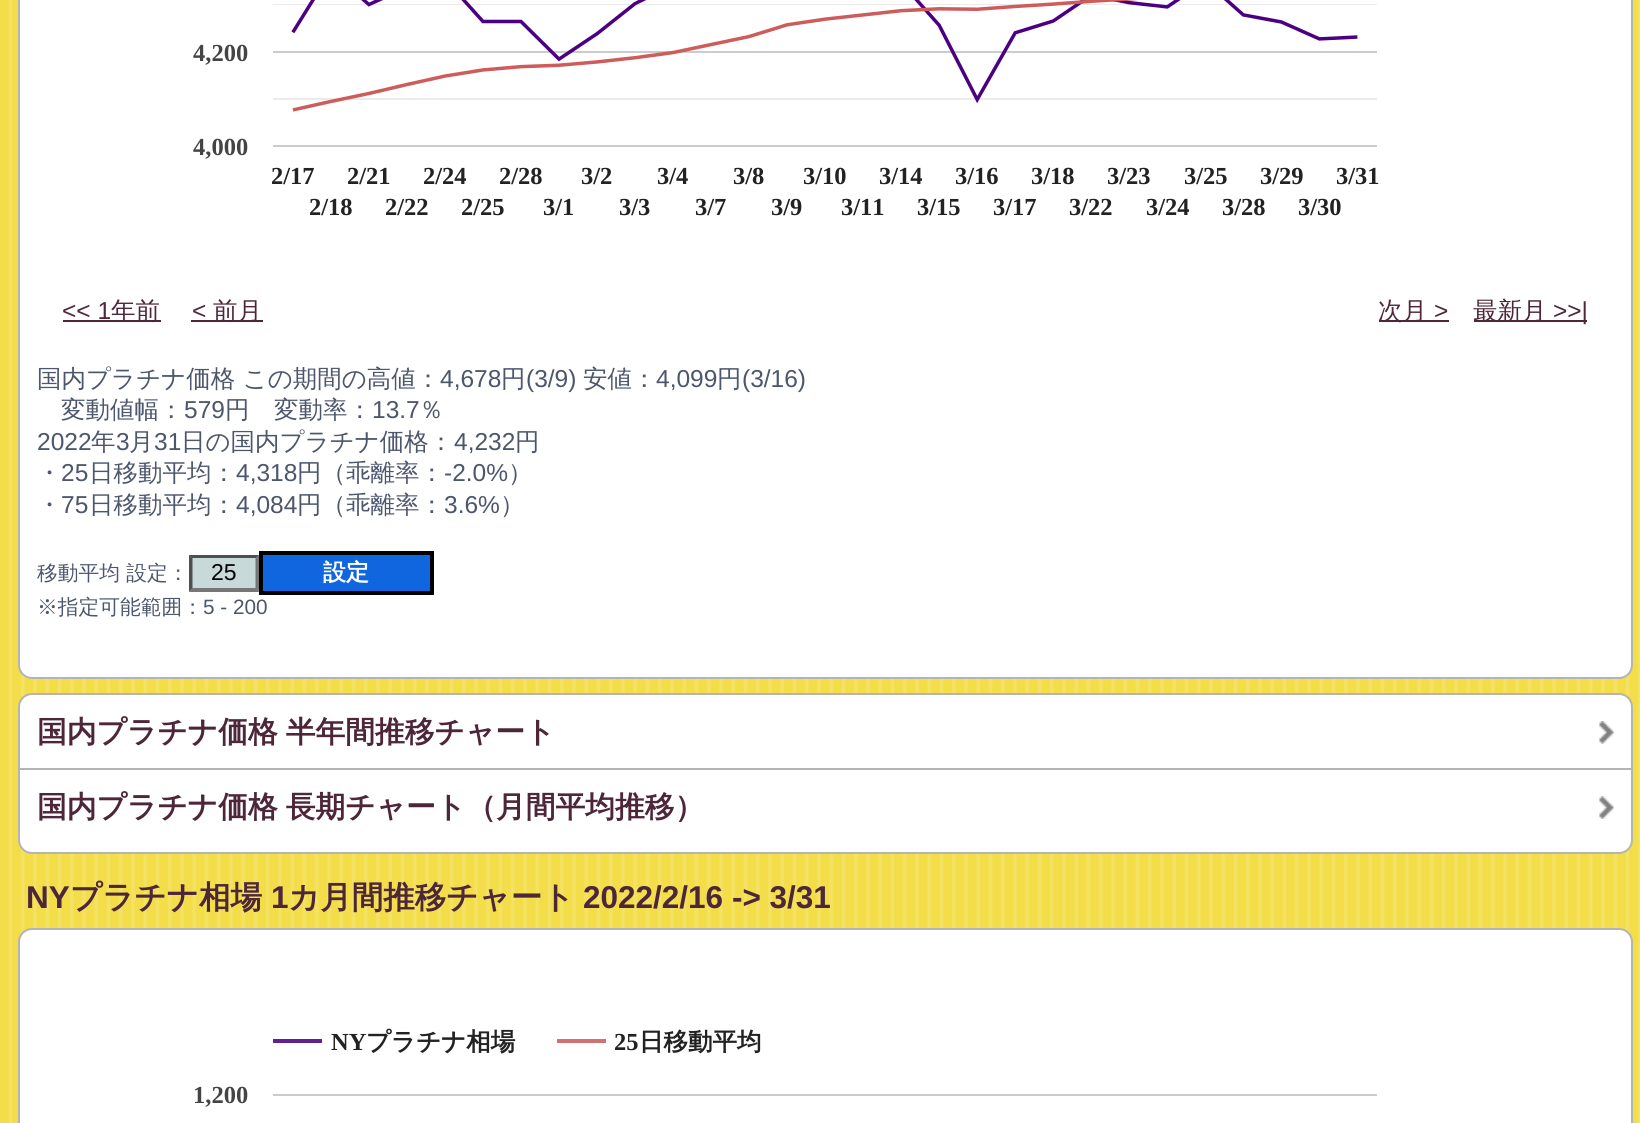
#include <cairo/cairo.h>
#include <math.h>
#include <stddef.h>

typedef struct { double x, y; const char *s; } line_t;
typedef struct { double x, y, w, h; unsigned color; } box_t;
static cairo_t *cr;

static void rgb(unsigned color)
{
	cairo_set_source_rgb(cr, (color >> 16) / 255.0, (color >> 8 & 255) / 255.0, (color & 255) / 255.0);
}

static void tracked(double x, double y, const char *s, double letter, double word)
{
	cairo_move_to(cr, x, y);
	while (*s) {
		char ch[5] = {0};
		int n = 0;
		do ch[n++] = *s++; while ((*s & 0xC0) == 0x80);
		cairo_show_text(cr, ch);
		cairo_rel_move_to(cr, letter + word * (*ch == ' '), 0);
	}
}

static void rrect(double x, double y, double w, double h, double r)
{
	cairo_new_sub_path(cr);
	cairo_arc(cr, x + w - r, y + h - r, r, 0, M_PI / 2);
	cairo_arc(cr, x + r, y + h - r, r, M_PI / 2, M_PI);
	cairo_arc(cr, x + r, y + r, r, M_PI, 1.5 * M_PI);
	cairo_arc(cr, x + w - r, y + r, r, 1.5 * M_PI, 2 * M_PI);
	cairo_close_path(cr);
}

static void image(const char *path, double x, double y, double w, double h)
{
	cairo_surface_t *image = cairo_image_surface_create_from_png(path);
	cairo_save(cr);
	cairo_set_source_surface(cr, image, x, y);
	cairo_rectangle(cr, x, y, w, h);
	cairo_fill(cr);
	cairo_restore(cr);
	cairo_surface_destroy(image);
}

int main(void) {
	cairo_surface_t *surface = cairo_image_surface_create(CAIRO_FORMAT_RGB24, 1640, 1123);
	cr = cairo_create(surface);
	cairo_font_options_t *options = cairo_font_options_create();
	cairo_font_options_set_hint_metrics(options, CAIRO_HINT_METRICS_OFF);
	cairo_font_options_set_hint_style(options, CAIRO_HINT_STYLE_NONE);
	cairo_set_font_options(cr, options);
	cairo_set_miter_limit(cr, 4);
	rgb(0xf3dd49);
	cairo_paint(cr);
	image("img/1.png", 0, 0, 1640, 1123);
	rgb(0xffffff);
	rrect(19, -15, 1613, 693, 13);
	cairo_fill_preserve(cr);
	rgb(0xb4b4b4);
	cairo_stroke(cr);
	image("img/2.png", 273, 0, 1104, 147);
	{
		static const box_t items[] = {
			{63, 320, 98, 2, 0x4d2639},
			{191, 320, 72, 2, 0x4d2639},
			{1379, 320, 70, 2, 0x4d2639},
			{1474, 320, 113, 2, 0x4d2639},
			{189, 555, 70, 37, 0xc7d9d9},
		};
		for (size_t i = 0; i < sizeof items / sizeof *items; i++) {
			rgb(items[i].color);
			cairo_rectangle(cr, items[i].x, items[i].y, items[i].w, items[i].h);
			cairo_fill(cr);
		}
	}
	rgb(0x4f4f4f);
	cairo_new_path(cr);
	cairo_move_to(cr, 189, 555);
	cairo_line_to(cr, 259, 555);
	cairo_line_to(cr, 256, 558);
	cairo_line_to(cr, 192, 558);
	cairo_close_path(cr);
	cairo_fill(cr);
	rgb(0x767676);
	cairo_new_path(cr);
	cairo_move_to(cr, 259, 555);
	cairo_line_to(cr, 259, 591.5);
	cairo_line_to(cr, 255.5, 588);
	cairo_line_to(cr, 255.5, 558);
	cairo_close_path(cr);
	cairo_fill(cr);
	cairo_new_path(cr);
	cairo_move_to(cr, 259, 592);
	cairo_line_to(cr, 189, 592);
	cairo_line_to(cr, 192, 588);
	cairo_line_to(cr, 256, 588);
	cairo_close_path(cr);
	cairo_fill(cr);
	rgb(0x4f4f4f);
	cairo_new_path(cr);
	cairo_move_to(cr, 189, 591.5);
	cairo_line_to(cr, 189, 555);
	cairo_line_to(cr, 192.5, 558);
	cairo_line_to(cr, 192.5, 588);
	cairo_close_path(cr);
	cairo_fill(cr);
	rgb(0x1066de);
	cairo_rectangle(cr, 261, 553, 171, 40);
	cairo_fill_preserve(cr);
	rgb(0x000000);
	cairo_set_line_width(cr, 4);
	cairo_stroke(cr);
	rgb(0xffffff);
	rrect(19, 694, 1613, 159, 13);
	cairo_fill_preserve(cr);
	rgb(0xb4b4b4);
	cairo_set_line_width(cr, 2);
	cairo_stroke(cr);
	image("img/3.png", 1599, 721, 15, 23);
	cairo_rectangle(cr, 19, 768, 1612, 2);
	cairo_fill(cr);
	image("img/4.png", 1599, 796, 15, 23);
	rgb(0xffffff);
	rrect(19, 929, 1613, 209, 13);
	cairo_fill_preserve(cr);
	rgb(0xb4b4b4);
	cairo_stroke(cr);
	image("img/5.png", 273, 1039, 1104, 57);
	cairo_select_font_face(cr, "Liberation Serif", CAIRO_FONT_SLANT_NORMAL, CAIRO_FONT_WEIGHT_BOLD);
	cairo_set_font_size(cr, 24.5);
	rgb(0x444444);
	cairo_move_to(cr, 193, 61);
	cairo_show_text(cr, "4,200");
	cairo_move_to(cr, 193, 155);
	cairo_show_text(cr, "4,000");
	rgb(0x222222);
	{
		static const line_t items[] = {
			{271, 184, "2/17"},
			{347, 184, "2/21"},
			{423, 184, "2/24"},
			{499, 184, "2/28"},
			{581, 184, "3/2"},
			{657, 184, "3/4"},
			{733, 184, "3/8"},
			{803, 184, "3/10"},
			{879, 184, "3/14"},
			{955, 184, "3/16"},
			{1031, 184, "3/18"},
			{1107, 184, "3/23"},
			{1184, 184, "3/25"},
			{1260, 184, "3/29"},
			{1336, 184, "3/31"},
			{309, 215, "2/18"},
			{385, 215, "2/22"},
			{461, 215, "2/25"},
			{543, 215, "3/1"},
			{619, 215, "3/3"},
			{695, 215, "3/7"},
			{771, 215, "3/9"},
			{841, 215, "3/11"},
			{917, 215, "3/15"},
			{993, 215, "3/17"},
			{1069, 215, "3/22"},
			{1146, 215, "3/24"},
			{1222, 215, "3/28"},
			{1298, 215, "3/30"},
		};
		for (size_t i = 0; i < sizeof items / sizeof *items; i++) {
			cairo_move_to(cr, items[i].x, items[i].y);
			cairo_show_text(cr, items[i].s);
		}
	}
	cairo_select_font_face(cr, "Liberation Sans", CAIRO_FONT_SLANT_NORMAL, CAIRO_FONT_WEIGHT_NORMAL);
	rgb(0x4d2639);
	cairo_move_to(cr, 62, 319);
	cairo_show_text(cr, "<< 1");
	cairo_select_font_face(cr, "WenQuanYi Zen Hei Medium", CAIRO_FONT_SLANT_NORMAL, CAIRO_FONT_WEIGHT_NORMAL);
	cairo_move_to(cr, 111, 319);
	cairo_show_text(cr, "年前");
	cairo_select_font_face(cr, "Liberation Sans", CAIRO_FONT_SLANT_NORMAL, CAIRO_FONT_WEIGHT_NORMAL);
	cairo_move_to(cr, 192, 319);
	cairo_show_text(cr, "<");
	cairo_select_font_face(cr, "WenQuanYi Zen Hei Medium", CAIRO_FONT_SLANT_NORMAL, CAIRO_FONT_WEIGHT_NORMAL);
	cairo_move_to(cr, 213, 319);
	cairo_show_text(cr, "前月");
	cairo_move_to(cr, 1378, 319);
	cairo_show_text(cr, "次月");
	cairo_select_font_face(cr, "Liberation Sans", CAIRO_FONT_SLANT_NORMAL, CAIRO_FONT_WEIGHT_NORMAL);
	cairo_move_to(cr, 1434, 319);
	cairo_show_text(cr, ">");
	cairo_select_font_face(cr, "WenQuanYi Zen Hei Medium", CAIRO_FONT_SLANT_NORMAL, CAIRO_FONT_WEIGHT_NORMAL);
	cairo_move_to(cr, 1473, 319);
	cairo_show_text(cr, "最新月");
	cairo_select_font_face(cr, "Liberation Sans", CAIRO_FONT_SLANT_NORMAL, CAIRO_FONT_WEIGHT_NORMAL);
	cairo_move_to(cr, 1553, 319);
	cairo_show_text(cr, ">>|");
	cairo_select_font_face(cr, "WenQuanYi Zen Hei Medium", CAIRO_FONT_SLANT_NORMAL, CAIRO_FONT_WEIGHT_NORMAL);
	rgb(0x4c566c);
	cairo_move_to(cr, 37, 387);
	cairo_show_text(cr, "国内プラチナ価格 この期間の高値：");
	cairo_select_font_face(cr, "Liberation Sans", CAIRO_FONT_SLANT_NORMAL, CAIRO_FONT_WEIGHT_NORMAL);
	cairo_move_to(cr, 440, 387);
	cairo_show_text(cr, "4,678");
	cairo_select_font_face(cr, "WenQuanYi Zen Hei Medium", CAIRO_FONT_SLANT_NORMAL, CAIRO_FONT_WEIGHT_NORMAL);
	cairo_move_to(cr, 501, 387);
	cairo_show_text(cr, "円");
	cairo_select_font_face(cr, "Liberation Sans", CAIRO_FONT_SLANT_NORMAL, CAIRO_FONT_WEIGHT_NORMAL);
	cairo_move_to(cr, 526, 387);
	cairo_show_text(cr, "(3/9)");
	cairo_select_font_face(cr, "WenQuanYi Zen Hei Medium", CAIRO_FONT_SLANT_NORMAL, CAIRO_FONT_WEIGHT_NORMAL);
	cairo_move_to(cr, 583, 387);
	cairo_show_text(cr, "安値：");
	cairo_select_font_face(cr, "Liberation Sans", CAIRO_FONT_SLANT_NORMAL, CAIRO_FONT_WEIGHT_NORMAL);
	cairo_move_to(cr, 656, 387);
	cairo_show_text(cr, "4,099");
	cairo_select_font_face(cr, "WenQuanYi Zen Hei Medium", CAIRO_FONT_SLANT_NORMAL, CAIRO_FONT_WEIGHT_NORMAL);
	cairo_move_to(cr, 717, 387);
	cairo_show_text(cr, "円");
	cairo_select_font_face(cr, "Liberation Sans", CAIRO_FONT_SLANT_NORMAL, CAIRO_FONT_WEIGHT_NORMAL);
	cairo_move_to(cr, 742, 387);
	cairo_show_text(cr, "(3/16)");
	cairo_select_font_face(cr, "WenQuanYi Zen Hei Medium", CAIRO_FONT_SLANT_NORMAL, CAIRO_FONT_WEIGHT_NORMAL);
	cairo_move_to(cr, 61, 418);
	cairo_show_text(cr, "変動値幅：");
	cairo_select_font_face(cr, "Liberation Sans", CAIRO_FONT_SLANT_NORMAL, CAIRO_FONT_WEIGHT_NORMAL);
	cairo_move_to(cr, 184, 418);
	cairo_show_text(cr, "579");
	cairo_select_font_face(cr, "WenQuanYi Zen Hei Medium", CAIRO_FONT_SLANT_NORMAL, CAIRO_FONT_WEIGHT_NORMAL);
	cairo_move_to(cr, 225, 418);
	cairo_show_text(cr, "円　変動率：");
	cairo_select_font_face(cr, "Liberation Sans", CAIRO_FONT_SLANT_NORMAL, CAIRO_FONT_WEIGHT_NORMAL);
	cairo_move_to(cr, 372, 418);
	cairo_show_text(cr, "13.7");
	cairo_select_font_face(cr, "WenQuanYi Zen Hei Medium", CAIRO_FONT_SLANT_NORMAL, CAIRO_FONT_WEIGHT_NORMAL);
	cairo_move_to(cr, 419, 418);
	cairo_show_text(cr, "％");
	cairo_select_font_face(cr, "Liberation Sans", CAIRO_FONT_SLANT_NORMAL, CAIRO_FONT_WEIGHT_NORMAL);
	cairo_move_to(cr, 37, 450);
	cairo_show_text(cr, "2022");
	cairo_select_font_face(cr, "WenQuanYi Zen Hei Medium", CAIRO_FONT_SLANT_NORMAL, CAIRO_FONT_WEIGHT_NORMAL);
	cairo_move_to(cr, 91, 450);
	cairo_show_text(cr, "年");
	cairo_select_font_face(cr, "Liberation Sans", CAIRO_FONT_SLANT_NORMAL, CAIRO_FONT_WEIGHT_NORMAL);
	cairo_move_to(cr, 116, 450);
	cairo_show_text(cr, "3");
	cairo_select_font_face(cr, "WenQuanYi Zen Hei Medium", CAIRO_FONT_SLANT_NORMAL, CAIRO_FONT_WEIGHT_NORMAL);
	cairo_move_to(cr, 129, 450);
	cairo_show_text(cr, "月");
	cairo_select_font_face(cr, "Liberation Sans", CAIRO_FONT_SLANT_NORMAL, CAIRO_FONT_WEIGHT_NORMAL);
	cairo_move_to(cr, 154, 450);
	cairo_show_text(cr, "31");
	cairo_select_font_face(cr, "WenQuanYi Zen Hei Medium", CAIRO_FONT_SLANT_NORMAL, CAIRO_FONT_WEIGHT_NORMAL);
	cairo_move_to(cr, 181, 450);
	cairo_show_text(cr, "日の国内プラチナ価格：");
	cairo_select_font_face(cr, "Liberation Sans", CAIRO_FONT_SLANT_NORMAL, CAIRO_FONT_WEIGHT_NORMAL);
	cairo_move_to(cr, 454, 450);
	cairo_show_text(cr, "4,232");
	cairo_select_font_face(cr, "WenQuanYi Zen Hei Medium", CAIRO_FONT_SLANT_NORMAL, CAIRO_FONT_WEIGHT_NORMAL);
	cairo_move_to(cr, 515, 450);
	cairo_show_text(cr, "円");
	cairo_move_to(cr, 37, 481);
	cairo_show_text(cr, "・");
	cairo_select_font_face(cr, "Liberation Sans", CAIRO_FONT_SLANT_NORMAL, CAIRO_FONT_WEIGHT_NORMAL);
	cairo_move_to(cr, 61, 481);
	cairo_show_text(cr, "25");
	cairo_select_font_face(cr, "WenQuanYi Zen Hei Medium", CAIRO_FONT_SLANT_NORMAL, CAIRO_FONT_WEIGHT_NORMAL);
	cairo_move_to(cr, 89, 481);
	cairo_show_text(cr, "日移動平均：");
	cairo_select_font_face(cr, "Liberation Sans", CAIRO_FONT_SLANT_NORMAL, CAIRO_FONT_WEIGHT_NORMAL);
	cairo_move_to(cr, 236, 481);
	cairo_show_text(cr, "4,318");
	cairo_select_font_face(cr, "WenQuanYi Zen Hei Medium", CAIRO_FONT_SLANT_NORMAL, CAIRO_FONT_WEIGHT_NORMAL);
	cairo_move_to(cr, 297, 481);
	cairo_show_text(cr, "円（乖離率：");
	cairo_select_font_face(cr, "Liberation Sans", CAIRO_FONT_SLANT_NORMAL, CAIRO_FONT_WEIGHT_NORMAL);
	cairo_move_to(cr, 444, 481);
	cairo_show_text(cr, "-2.0%");
	cairo_select_font_face(cr, "WenQuanYi Zen Hei Medium", CAIRO_FONT_SLANT_NORMAL, CAIRO_FONT_WEIGHT_NORMAL);
	cairo_move_to(cr, 508, 481);
	cairo_show_text(cr, "）");
	cairo_move_to(cr, 37, 513);
	cairo_show_text(cr, "・");
	cairo_select_font_face(cr, "Liberation Sans", CAIRO_FONT_SLANT_NORMAL, CAIRO_FONT_WEIGHT_NORMAL);
	cairo_move_to(cr, 61, 513);
	cairo_show_text(cr, "75");
	cairo_select_font_face(cr, "WenQuanYi Zen Hei Medium", CAIRO_FONT_SLANT_NORMAL, CAIRO_FONT_WEIGHT_NORMAL);
	cairo_move_to(cr, 89, 513);
	cairo_show_text(cr, "日移動平均：");
	cairo_select_font_face(cr, "Liberation Sans", CAIRO_FONT_SLANT_NORMAL, CAIRO_FONT_WEIGHT_NORMAL);
	cairo_move_to(cr, 236, 513);
	cairo_show_text(cr, "4,084");
	cairo_select_font_face(cr, "WenQuanYi Zen Hei Medium", CAIRO_FONT_SLANT_NORMAL, CAIRO_FONT_WEIGHT_NORMAL);
	cairo_move_to(cr, 297, 513);
	cairo_show_text(cr, "円（乖離率：");
	cairo_select_font_face(cr, "Liberation Sans", CAIRO_FONT_SLANT_NORMAL, CAIRO_FONT_WEIGHT_NORMAL);
	cairo_move_to(cr, 444, 513);
	cairo_show_text(cr, "3.6%");
	cairo_select_font_face(cr, "WenQuanYi Zen Hei Medium", CAIRO_FONT_SLANT_NORMAL, CAIRO_FONT_WEIGHT_NORMAL);
	cairo_move_to(cr, 500, 513);
	cairo_show_text(cr, "）");
	cairo_set_font_size(cr, 20.75);
	cairo_move_to(cr, 37, 580);
	cairo_show_text(cr, "移動平均 設定：");
	cairo_select_font_face(cr, "Liberation Sans", CAIRO_FONT_SLANT_NORMAL, CAIRO_FONT_WEIGHT_NORMAL);
	cairo_set_font_size(cr, 23);
	rgb(0x000000);
	cairo_move_to(cr, 211, 580);
	cairo_show_text(cr, "25");
	cairo_select_font_face(cr, "WenQuanYi Zen Hei", CAIRO_FONT_SLANT_NORMAL, CAIRO_FONT_WEIGHT_BOLD);
	rgb(0xffffff);
	cairo_move_to(cr, 323, 580);
	cairo_show_text(cr, "設定");
	cairo_select_font_face(cr, "WenQuanYi Zen Hei Medium", CAIRO_FONT_SLANT_NORMAL, CAIRO_FONT_WEIGHT_NORMAL);
	cairo_set_font_size(cr, 20.75);
	rgb(0x4c566c);
	cairo_move_to(cr, 37, 614);
	cairo_show_text(cr, "※指定可能範囲：");
	cairo_select_font_face(cr, "Liberation Sans", CAIRO_FONT_SLANT_NORMAL, CAIRO_FONT_WEIGHT_NORMAL);
	cairo_move_to(cr, 203, 614);
	cairo_show_text(cr, "5 - 200");
	cairo_select_font_face(cr, "WenQuanYi Zen Hei", CAIRO_FONT_SLANT_NORMAL, CAIRO_FONT_WEIGHT_BOLD);
	cairo_set_font_size(cr, 29.75);
	rgb(0x4d2639);
	tracked(37, 742, "国内プラチナ価格 半年間推移チャート", 0, -1);
	tracked(37, 817, "国内プラチナ価格 長期チャート（月間平均推移）", 0, -1);
	cairo_select_font_face(cr, "Liberation Sans", CAIRO_FONT_SLANT_NORMAL, CAIRO_FONT_WEIGHT_BOLD);
	cairo_set_font_size(cr, 31.5);
	cairo_move_to(cr, 26, 908);
	cairo_show_text(cr, "NY");
	cairo_select_font_face(cr, "WenQuanYi Zen Hei", CAIRO_FONT_SLANT_NORMAL, CAIRO_FONT_WEIGHT_BOLD);
	cairo_move_to(cr, 70, 908);
	cairo_show_text(cr, "プラチナ相場");
	cairo_select_font_face(cr, "Liberation Sans", CAIRO_FONT_SLANT_NORMAL, CAIRO_FONT_WEIGHT_BOLD);
	cairo_move_to(cr, 271, 908);
	cairo_show_text(cr, "1");
	cairo_select_font_face(cr, "WenQuanYi Zen Hei", CAIRO_FONT_SLANT_NORMAL, CAIRO_FONT_WEIGHT_BOLD);
	cairo_move_to(cr, 288, 908);
	cairo_show_text(cr, "カ月間推移チャート");
	cairo_select_font_face(cr, "Liberation Sans", CAIRO_FONT_SLANT_NORMAL, CAIRO_FONT_WEIGHT_BOLD);
	cairo_move_to(cr, 583, 908);
	cairo_show_text(cr, "2022/2/16 -> 3/31");
	cairo_select_font_face(cr, "Liberation Serif", CAIRO_FONT_SLANT_NORMAL, CAIRO_FONT_WEIGHT_BOLD);
	cairo_set_font_size(cr, 24.5);
	rgb(0x222222);
	cairo_move_to(cr, 331, 1050);
	cairo_show_text(cr, "NY");
	cairo_select_font_face(cr, "WenQuanYi Zen Hei", CAIRO_FONT_SLANT_NORMAL, CAIRO_FONT_WEIGHT_BOLD);
	cairo_move_to(cr, 366, 1050);
	cairo_show_text(cr, "プラチナ相場");
	cairo_select_font_face(cr, "Liberation Serif", CAIRO_FONT_SLANT_NORMAL, CAIRO_FONT_WEIGHT_BOLD);
	cairo_move_to(cr, 614, 1050);
	cairo_show_text(cr, "25");
	cairo_select_font_face(cr, "WenQuanYi Zen Hei", CAIRO_FONT_SLANT_NORMAL, CAIRO_FONT_WEIGHT_BOLD);
	cairo_move_to(cr, 639, 1050);
	cairo_show_text(cr, "日移動平均");
	cairo_select_font_face(cr, "Liberation Serif", CAIRO_FONT_SLANT_NORMAL, CAIRO_FONT_WEIGHT_BOLD);
	rgb(0x444444);
	cairo_move_to(cr, 193, 1103);
	cairo_show_text(cr, "1,200");
	cairo_surface_write_to_png(surface, "page.png");
	cairo_font_options_destroy(options);
	cairo_destroy(cr);
	cairo_surface_destroy(surface);
	return 0;
}
